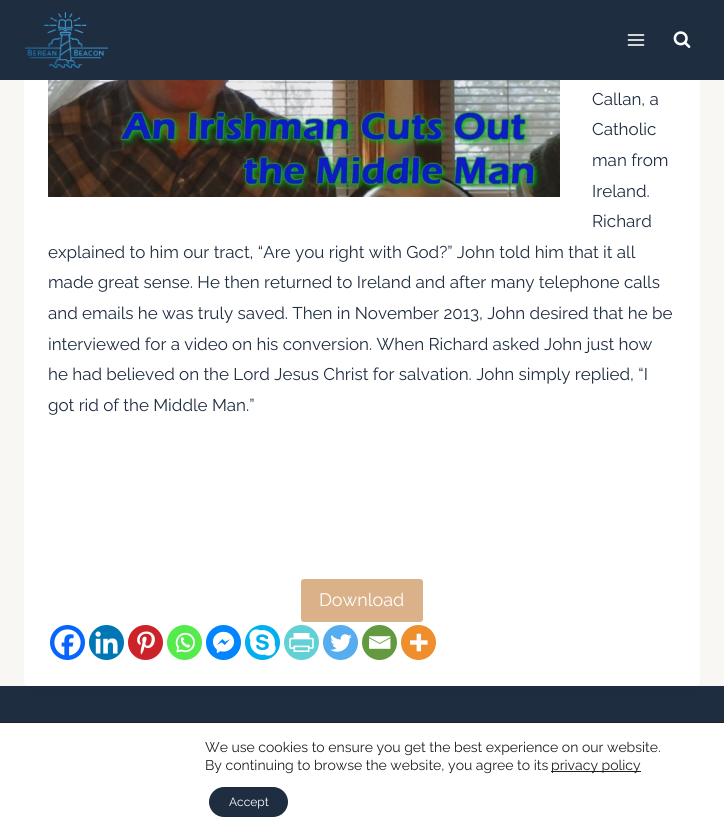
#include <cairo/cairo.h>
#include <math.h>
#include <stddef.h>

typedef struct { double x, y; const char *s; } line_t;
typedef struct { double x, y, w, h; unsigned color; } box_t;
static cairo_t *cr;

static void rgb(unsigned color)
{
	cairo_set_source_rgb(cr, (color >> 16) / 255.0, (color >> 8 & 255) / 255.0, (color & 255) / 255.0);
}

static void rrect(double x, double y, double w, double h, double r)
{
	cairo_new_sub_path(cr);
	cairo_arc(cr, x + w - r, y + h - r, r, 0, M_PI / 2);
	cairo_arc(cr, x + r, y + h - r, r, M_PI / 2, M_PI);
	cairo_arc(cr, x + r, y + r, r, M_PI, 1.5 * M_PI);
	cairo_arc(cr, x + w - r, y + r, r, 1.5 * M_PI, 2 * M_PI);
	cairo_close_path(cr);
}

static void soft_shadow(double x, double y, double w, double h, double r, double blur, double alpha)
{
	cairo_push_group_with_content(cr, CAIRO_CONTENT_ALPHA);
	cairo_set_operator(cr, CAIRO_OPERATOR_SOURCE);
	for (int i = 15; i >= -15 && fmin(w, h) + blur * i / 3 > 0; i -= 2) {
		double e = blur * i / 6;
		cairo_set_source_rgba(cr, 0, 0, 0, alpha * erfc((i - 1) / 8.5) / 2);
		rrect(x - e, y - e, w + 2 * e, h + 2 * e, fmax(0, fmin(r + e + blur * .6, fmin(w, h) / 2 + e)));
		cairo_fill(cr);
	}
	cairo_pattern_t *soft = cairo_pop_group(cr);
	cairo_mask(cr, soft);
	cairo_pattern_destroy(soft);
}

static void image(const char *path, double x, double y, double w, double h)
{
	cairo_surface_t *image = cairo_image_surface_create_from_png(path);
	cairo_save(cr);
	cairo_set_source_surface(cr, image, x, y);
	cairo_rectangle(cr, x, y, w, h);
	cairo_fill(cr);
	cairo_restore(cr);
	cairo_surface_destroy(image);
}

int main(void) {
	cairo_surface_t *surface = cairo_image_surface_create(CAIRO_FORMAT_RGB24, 724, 835);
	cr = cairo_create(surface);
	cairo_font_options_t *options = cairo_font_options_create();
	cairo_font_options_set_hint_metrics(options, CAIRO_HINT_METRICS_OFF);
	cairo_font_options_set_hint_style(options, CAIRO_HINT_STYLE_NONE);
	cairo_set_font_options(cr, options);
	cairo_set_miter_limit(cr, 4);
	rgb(0xf8f7f3);
	cairo_paint(cr);
	rgb(0x1e2d40);
	cairo_rectangle(cr, 0, 686, 724, 36);
	cairo_fill(cr);
	rgb(0x000000);
	soft_shadow(34, -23, 656, 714, 0, 7.5, 0.05);
	rgb(0xffffff);
	rrect(24, -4, 676, 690, 4);
	cairo_fill(cr);
	rgb(0x1e2d40);
	cairo_rectangle(cr, 0, 0, 724, 80);
	cairo_fill(cr);
	image("img/1.png", 25, 11, 84, 58);
	image("img/2.png", 627, 34, 18, 12);
	image("img/3.png", 673, 31, 18, 17);
	image("img/4.png", 48, 80, 512, 117);
	rgb(0xdbb189);
	rrect(301, 579, 122, 43, 3);
	cairo_fill(cr);
	rgb(0x0765fe);
	cairo_arc(cr, 67.5, 642.5, 17.5, 0, 2 * M_PI);
	cairo_fill(cr);
	image("img/5.png", 54, 629, 27, 27);
	rgb(0x0077b5);
	cairo_arc(cr, 106.5, 642.5, 17.5, 0, 2 * M_PI);
	cairo_fill(cr);
	image("img/6.png", 95, 631, 23, 23);
	rgb(0xcc2329);
	cairo_arc(cr, 145.5, 642.5, 17.5, 0, 2 * M_PI);
	cairo_fill(cr);
	image("img/7.png", 137, 631, 18, 24);
	rgb(0x55eb4c);
	cairo_arc(cr, 184.5, 642.5, 17.5, 0, 2 * M_PI);
	cairo_fill(cr);
	image("img/8.png", 175, 632, 20, 21);
	rgb(0x0084ff);
	cairo_arc(cr, 223.5, 642.5, 17.5, 0, 2 * M_PI);
	cairo_fill(cr);
	image("img/9.png", 212, 631, 23, 23);
	rgb(0x00aff0);
	cairo_arc(cr, 262.5, 642.5, 17.5, 0, 2 * M_PI);
	cairo_fill(cr);
	image("img/10.png", 249, 629, 27, 27);
	rgb(0x61d1d5);
	cairo_arc(cr, 301.5, 642.5, 17.5, 0, 2 * M_PI);
	cairo_fill(cr);
	image("img/11.png", 289, 633, 25, 19);
	rgb(0x55acee);
	cairo_arc(cr, 340.5, 642.5, 17.5, 0, 2 * M_PI);
	cairo_fill(cr);
	image("img/12.png", 330, 634, 22, 18);
	rgb(0x649a3f);
	cairo_arc(cr, 379.5, 642.5, 17.5, 0, 2 * M_PI);
	cairo_fill(cr);
	image("img/13.png", 369, 636, 22, 13);
	rgb(0xee8e2d);
	cairo_arc(cr, 418.5, 642.5, 17.5, 0, 2 * M_PI);
	cairo_fill(cr);
	image("img/14.png", 410, 633, 18, 19);
	{
		static const box_t items[] = {
			{0, 723, 724, 112, 0xffffff},
			{0, 722, 724, 1, 0x202020},
			{551, 771, 90, 1, 0x202020},
		};
		for (size_t i = 0; i < sizeof items / sizeof *items; i++) {
			rgb(items[i].color);
			cairo_rectangle(cr, items[i].x, items[i].y, items[i].w, items[i].h);
			cairo_fill(cr);
		}
	}
	rgb(0x1e2d40);
	rrect(209, 787, 79, 30, 15);
	cairo_fill(cr);
	cairo_select_font_face(cr, "Raleway", CAIRO_FONT_SLANT_NORMAL, CAIRO_FONT_WEIGHT_NORMAL);
	cairo_set_font_size(cr, 17);
	{
		static const line_t items[] = {
			{592, 105, "Callan, a"},
			{592, 135, "Catholic"},
			{592, 166, "man from"},
			{592, 197, "Ireland."},
			{592, 227, "Richard"},
			{48, 258, "explained to him our tract, “Are you right with God?” John told him that it all"},
			{48, 288, "made great sense. He then returned to Ireland and after many telephone calls"},
			{48, 319, "and emails he was truly saved. Then in November 2013, John desired that he be"},
			{48, 350, "interviewed for a video on his conversion. When Richard asked John just how"},
			{48, 380, "he had believed on the Lord Jesus Christ for salvation. John simply replied, “I"},
			{48, 411, "got rid of the Middle Man.”"},
		};
		for (size_t i = 0; i < sizeof items / sizeof *items; i++) {
			cairo_move_to(cr, items[i].x, items[i].y);
			cairo_show_text(cr, items[i].s);
		}
	}
	cairo_set_font_size(cr, 18);
	rgb(0xffffff);
	cairo_move_to(cr, 319, 606);
	cairo_show_text(cr, "Download");
	cairo_set_font_size(cr, 14);
	rgb(0x202020);
	{
		static const line_t items[] = {
			{205, 752, "We use cookies to ensure you get the best experience on our website."},
			{205, 770, "By continuing to browse the website, you agree to its"},
			{551, 770, "privacy policy"},
		};
		for (size_t i = 0; i < sizeof items / sizeof *items; i++) {
			cairo_move_to(cr, items[i].x, items[i].y);
			cairo_show_text(cr, items[i].s);
		}
	}
	cairo_set_font_size(cr, 12);
	rgb(0xffffff);
	cairo_move_to(cr, 229, 806);
	cairo_show_text(cr, "Accept");
	cairo_surface_write_to_png(surface, "page.png");
	cairo_font_options_destroy(options);
	cairo_destroy(cr);
	cairo_surface_destroy(surface);
	return 0;
}
